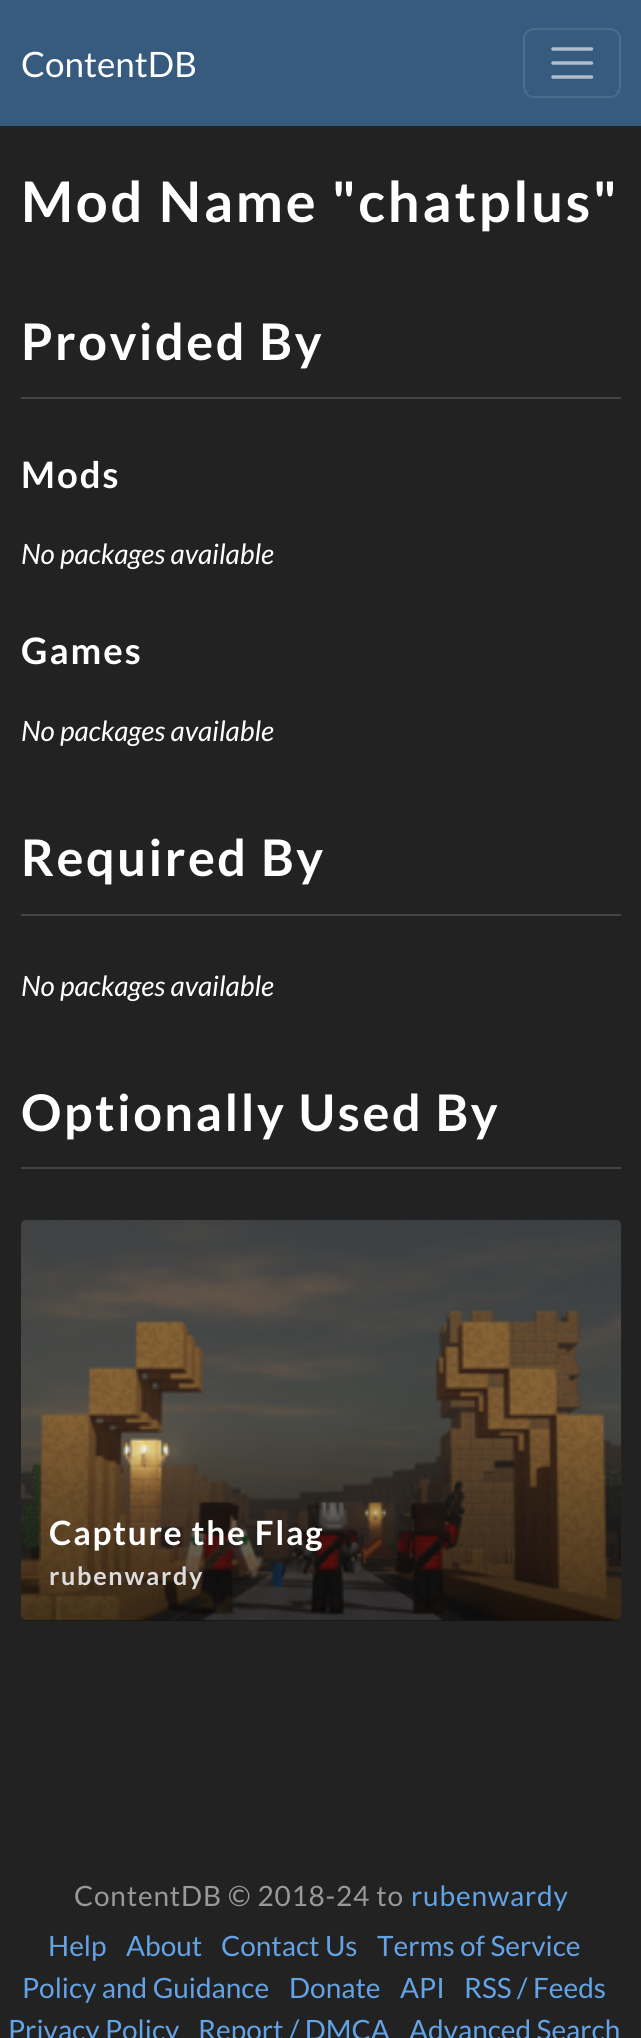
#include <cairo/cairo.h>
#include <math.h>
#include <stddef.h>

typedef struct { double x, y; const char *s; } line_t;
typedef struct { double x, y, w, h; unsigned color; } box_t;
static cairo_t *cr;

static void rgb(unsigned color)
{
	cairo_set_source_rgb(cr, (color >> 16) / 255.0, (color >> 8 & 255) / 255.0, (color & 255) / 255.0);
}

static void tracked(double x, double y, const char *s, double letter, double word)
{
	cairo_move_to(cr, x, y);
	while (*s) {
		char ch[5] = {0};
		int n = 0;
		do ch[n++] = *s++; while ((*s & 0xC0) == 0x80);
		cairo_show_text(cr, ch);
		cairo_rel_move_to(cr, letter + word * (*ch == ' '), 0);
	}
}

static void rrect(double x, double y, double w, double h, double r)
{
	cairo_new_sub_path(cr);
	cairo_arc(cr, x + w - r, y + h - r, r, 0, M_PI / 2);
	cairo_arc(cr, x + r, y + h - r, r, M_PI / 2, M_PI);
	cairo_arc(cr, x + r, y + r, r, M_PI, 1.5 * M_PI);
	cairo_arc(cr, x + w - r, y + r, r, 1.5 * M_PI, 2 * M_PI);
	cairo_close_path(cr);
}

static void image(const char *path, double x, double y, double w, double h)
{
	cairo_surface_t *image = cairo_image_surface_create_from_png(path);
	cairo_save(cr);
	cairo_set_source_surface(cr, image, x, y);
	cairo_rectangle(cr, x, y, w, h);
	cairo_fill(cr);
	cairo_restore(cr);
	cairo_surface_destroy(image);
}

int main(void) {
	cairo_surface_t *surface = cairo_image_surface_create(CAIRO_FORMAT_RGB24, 641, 2038);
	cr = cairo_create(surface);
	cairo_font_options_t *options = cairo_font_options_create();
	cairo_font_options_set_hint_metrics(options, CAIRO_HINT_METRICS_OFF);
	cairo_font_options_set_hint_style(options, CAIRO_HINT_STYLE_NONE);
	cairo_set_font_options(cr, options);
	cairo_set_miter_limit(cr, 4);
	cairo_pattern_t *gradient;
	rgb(0x222222);
	cairo_paint(cr);
	rgb(0x375a7f);
	cairo_rectangle(cr, 0, 0, 641, 126);
	cairo_fill(cr);
	rrect(524, 29, 96, 68, 10);
	rgb(0x4b6b8c);
	cairo_stroke(cr);
	cairo_new_path(cr);
	cairo_move_to(cr, 553, 49);
	cairo_line_to(cr, 591.5, 49);
	cairo_move_to(cr, 553, 63);
	cairo_line_to(cr, 591.5, 63);
	cairo_move_to(cr, 553, 77);
	cairo_line_to(cr, 591.5, 77);
	rgb(0xafbdcc);
	cairo_set_line_width(cr, 3.5);
	cairo_set_line_cap(cr, CAIRO_LINE_CAP_ROUND);
	cairo_stroke(cr);
	{
		static const box_t items[] = {
			{21, 397, 600, 2, 0x444444},
			{21, 914, 600, 2, 0x444444},
			{21, 1167, 600, 2, 0x444444},
		};
		for (size_t i = 0; i < sizeof items / sizeof *items; i++) {
			rgb(items[i].color);
			cairo_rectangle(cr, items[i].x, items[i].y, items[i].w, items[i].h);
			cairo_fill(cr);
		}
	}
	image("img/1.png", 21, 1220, 601, 401);
	gradient = cairo_pattern_create_linear(321, 1421, 321, 1621);
	cairo_pattern_add_color_stop_rgba(gradient, 0, 0, 0, 0, 0);
	cairo_pattern_add_color_stop_rgba(gradient, 1, 0, 0, 0, 0.5);
	cairo_set_source(cr, gradient);
	cairo_pattern_destroy(gradient);
	cairo_new_path(cr);
	cairo_move_to(cr, 21, 1421);
	cairo_line_to(cr, 621, 1421);
	cairo_line_to(cr, 621, 1616);
	cairo_curve_to(cr, 621, 1619, 619, 1621, 616, 1621);
	cairo_line_to(cr, 26, 1621);
	cairo_curve_to(cr, 23, 1621, 21, 1619, 21, 1616);
	cairo_close_path(cr);
	cairo_fill(cr);
	cairo_select_font_face(cr, "Lato", CAIRO_FONT_SLANT_NORMAL, CAIRO_FONT_WEIGHT_NORMAL);
	cairo_set_font_size(cr, 35);
	rgb(0xffffff);
	cairo_move_to(cr, 21, 77);
	cairo_show_text(cr, "ContentDB");
	cairo_select_font_face(cr, "Lato", CAIRO_FONT_SLANT_NORMAL, CAIRO_FONT_WEIGHT_BOLD);
	cairo_set_font_size(cr, 56);
	tracked(21, 222, "Mod Name \"chatplus\"", 2.75, 0);
	cairo_set_font_size(cr, 50.5);
	tracked(21, 360, "Provided By", 2.5, 0);
	cairo_set_font_size(cr, 36.5);
	tracked(21, 488, "Mods", 2, 0);
	cairo_select_font_face(cr, "Lato", CAIRO_FONT_SLANT_ITALIC, CAIRO_FONT_WEIGHT_NORMAL);
	cairo_set_font_size(cr, 28);
	cairo_move_to(cr, 21, 564);
	cairo_show_text(cr, "No packages available");
	cairo_select_font_face(cr, "Lato", CAIRO_FONT_SLANT_NORMAL, CAIRO_FONT_WEIGHT_BOLD);
	cairo_set_font_size(cr, 36.5);
	tracked(21, 664, "Games", 2, 0);
	cairo_select_font_face(cr, "Lato", CAIRO_FONT_SLANT_ITALIC, CAIRO_FONT_WEIGHT_NORMAL);
	cairo_set_font_size(cr, 28);
	cairo_move_to(cr, 21, 741);
	cairo_show_text(cr, "No packages available");
	cairo_select_font_face(cr, "Lato", CAIRO_FONT_SLANT_NORMAL, CAIRO_FONT_WEIGHT_BOLD);
	cairo_set_font_size(cr, 50.5);
	tracked(21, 876, "Required By", 2.5, 0);
	cairo_select_font_face(cr, "Lato", CAIRO_FONT_SLANT_ITALIC, CAIRO_FONT_WEIGHT_NORMAL);
	cairo_set_font_size(cr, 28);
	cairo_move_to(cr, 21, 996);
	cairo_show_text(cr, "No packages available");
	cairo_select_font_face(cr, "Lato", CAIRO_FONT_SLANT_NORMAL, CAIRO_FONT_WEIGHT_BOLD);
	cairo_set_font_size(cr, 50.5);
	tracked(21, 1131, "Optionally Used By", 2.5, 0);
	cairo_set_font_size(cr, 33.5);
	tracked(49, 1545, "Capture the Flag", 1.7, 0);
	cairo_set_font_size(cr, 25.25);
	rgb(0xdddddd);
	tracked(49, 1585, "rubenwardy", 1.7, 0);
	cairo_select_font_face(cr, "Lato", CAIRO_FONT_SLANT_NORMAL, CAIRO_FONT_WEIGHT_NORMAL);
	cairo_set_font_size(cr, 28);
	rgb(0x999999);
	tracked(74, 1906, "ContentDB © 2018-24 to", 0.8, 0);
	rgb(0x63a3e6);
	tracked(411, 1906, "rubenwardy", 0.8, 0);
	{
		static const line_t items[] = {
			{48, 1956, "Help"},
			{126, 1956, "About"},
			{221, 1956, "Contact Us"},
			{377, 1956, "Terms of Service"},
			{22, 1998, "Policy and Guidance"},
			{289, 1998, "Donate"},
			{400, 1998, "API"},
			{464, 1998, "RSS / Feeds"},
			{8, 2040, "Privacy Policy"},
			{198, 2040, "Report / DMCA"},
			{409, 2040, "Advanced Search"},
		};
		for (size_t i = 0; i < sizeof items / sizeof *items; i++) {
			cairo_move_to(cr, items[i].x, items[i].y);
			cairo_show_text(cr, items[i].s);
		}
	}
	cairo_surface_write_to_png(surface, "page.png");
	cairo_font_options_destroy(options);
	cairo_destroy(cr);
	cairo_surface_destroy(surface);
	return 0;
}
